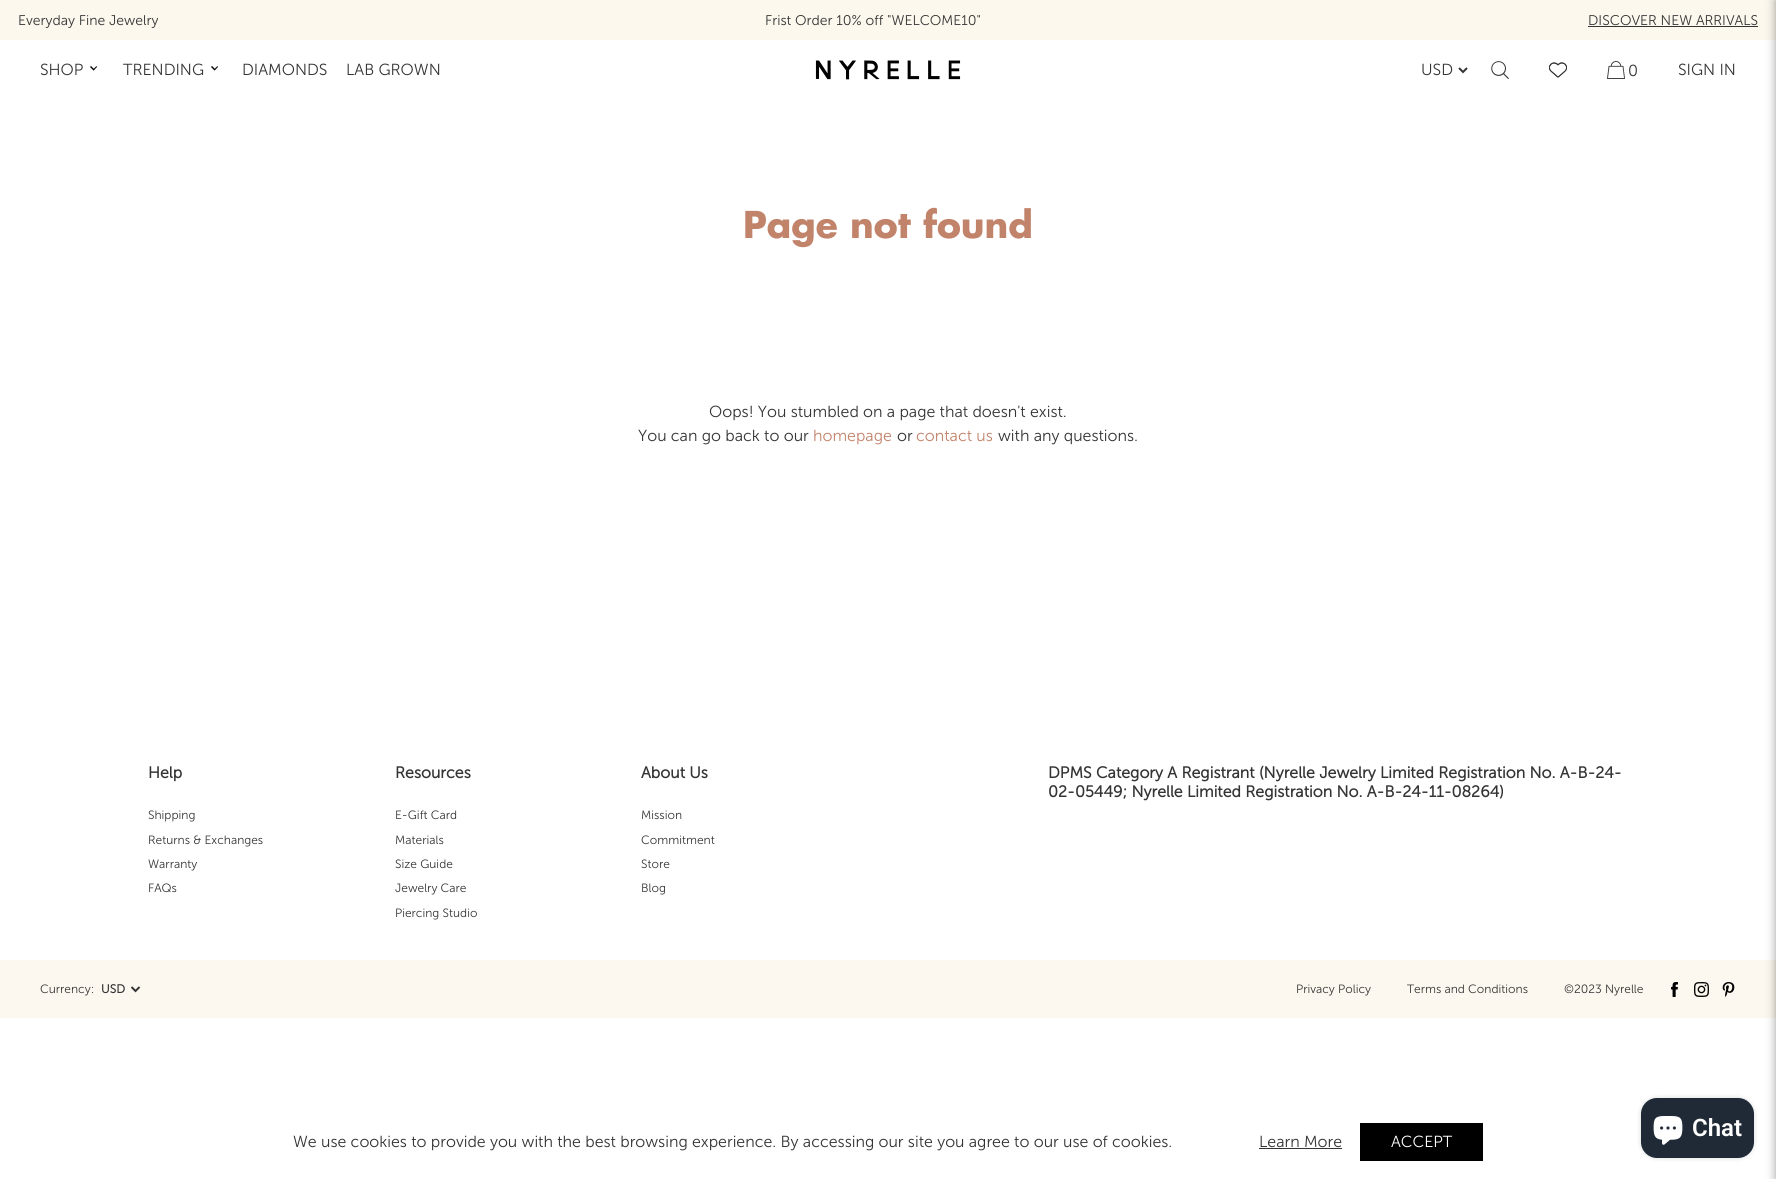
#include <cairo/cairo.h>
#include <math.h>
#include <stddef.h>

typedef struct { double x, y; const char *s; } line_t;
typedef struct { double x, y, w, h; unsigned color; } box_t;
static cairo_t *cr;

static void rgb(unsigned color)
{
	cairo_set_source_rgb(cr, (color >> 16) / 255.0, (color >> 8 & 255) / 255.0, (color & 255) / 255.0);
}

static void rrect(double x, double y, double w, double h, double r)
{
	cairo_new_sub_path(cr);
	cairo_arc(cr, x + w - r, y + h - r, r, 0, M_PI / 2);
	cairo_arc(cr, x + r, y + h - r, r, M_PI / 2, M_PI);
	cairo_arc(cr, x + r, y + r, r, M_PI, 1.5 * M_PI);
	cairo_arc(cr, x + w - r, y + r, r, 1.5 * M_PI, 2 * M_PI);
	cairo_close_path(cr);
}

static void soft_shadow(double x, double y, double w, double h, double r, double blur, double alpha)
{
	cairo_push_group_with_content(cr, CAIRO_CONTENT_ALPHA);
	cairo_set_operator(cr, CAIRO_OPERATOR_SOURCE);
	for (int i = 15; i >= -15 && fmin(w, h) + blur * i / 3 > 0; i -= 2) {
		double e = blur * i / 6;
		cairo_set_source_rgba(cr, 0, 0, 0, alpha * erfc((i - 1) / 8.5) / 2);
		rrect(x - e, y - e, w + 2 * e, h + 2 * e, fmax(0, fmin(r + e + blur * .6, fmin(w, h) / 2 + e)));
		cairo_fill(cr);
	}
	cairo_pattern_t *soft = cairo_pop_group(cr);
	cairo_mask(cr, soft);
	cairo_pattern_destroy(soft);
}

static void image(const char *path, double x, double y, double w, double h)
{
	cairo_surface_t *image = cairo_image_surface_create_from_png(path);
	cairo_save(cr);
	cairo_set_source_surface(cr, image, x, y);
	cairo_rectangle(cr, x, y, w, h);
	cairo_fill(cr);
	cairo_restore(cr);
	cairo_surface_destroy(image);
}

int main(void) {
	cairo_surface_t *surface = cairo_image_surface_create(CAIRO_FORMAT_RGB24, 1776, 1179);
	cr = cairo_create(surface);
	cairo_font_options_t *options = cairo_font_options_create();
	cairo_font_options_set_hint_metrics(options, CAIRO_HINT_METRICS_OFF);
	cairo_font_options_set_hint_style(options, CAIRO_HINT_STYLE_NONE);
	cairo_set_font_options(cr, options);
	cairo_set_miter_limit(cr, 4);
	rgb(0xffffff);
	cairo_paint(cr);
	{
		static const box_t items[] = {
			{0, 0, 1776, 40, 0xfcf8ee},
			{1588, 26, 170, 1, 0x343434},
			{0, 960, 1776, 58, 0xfdf8ef},
		};
		for (size_t i = 0; i < sizeof items / sizeof *items; i++) {
			rgb(items[i].color);
			cairo_rectangle(cr, items[i].x, items[i].y, items[i].w, items[i].h);
			cairo_fill(cr);
		}
	}
	rgb(0x000000);
	soft_shadow(1776, 0, 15, 1179, 0, 5, 0.4);
	rgb(0x000000);
	cairo_new_path(cr);
	cairo_move_to(cr, 96.5, 66);
	cairo_line_to(cr, 97, 67);
	cairo_line_to(cr, 93.5, 70.5);
	cairo_line_to(cr, 93, 69.5);
	cairo_close_path(cr);
	cairo_fill(cr);
	cairo_new_path(cr);
	cairo_move_to(cr, 91, 66);
	cairo_line_to(cr, 94.5, 69.5);
	cairo_line_to(cr, 93.5, 70.5);
	cairo_line_to(cr, 90, 67);
	cairo_close_path(cr);
	cairo_fill(cr);
	cairo_new_path(cr);
	cairo_move_to(cr, 217.5, 66);
	cairo_line_to(cr, 218, 67);
	cairo_line_to(cr, 214.5, 70.5);
	cairo_line_to(cr, 214, 69.5);
	cairo_close_path(cr);
	cairo_fill(cr);
	cairo_new_path(cr);
	cairo_move_to(cr, 212, 66);
	cairo_line_to(cr, 215.5, 69.5);
	cairo_line_to(cr, 214.5, 70.5);
	cairo_line_to(cr, 211, 67);
	cairo_close_path(cr);
	cairo_fill(cr);
	image("img/1.png", 815, 60, 146, 20);
	cairo_new_path(cr);
	cairo_move_to(cr, 1459, 68);
	cairo_line_to(cr, 1463, 72);
	cairo_line_to(cr, 1467, 68);
	rgb(0x343434);
	cairo_stroke(cr);
	image("img/2.png", 1491, 61, 18, 18);
	image("img/3.png", 1549, 62, 18, 16);
	image("img/4.png", 1607, 61, 18, 18);
	cairo_new_path(cr);
	cairo_move_to(cr, 131.5, 987);
	cairo_line_to(cr, 135.5, 991);
	cairo_line_to(cr, 139.5, 987);
	cairo_stroke(cr);
	image("img/5.png", 1671, 982, 7, 15);
	image("img/6.png", 1694, 982, 15, 15);
	image("img/7.png", 1722, 982, 13, 15);
	rgb(0x000000);
	soft_shadow(1641, 1098, 113, 60, 16, 2.5, 0.15);
	rgb(0x202a36);
	rrect(1641, 1098, 113, 60, 16);
	cairo_fill(cr);
	image("img/8.png", 1653, 1116, 30, 29);
	rgb(0x343434);
	cairo_rectangle(cr, 1259, 1148, 83, 1);
	cairo_fill(cr);
	rgb(0x000000);
	cairo_rectangle(cr, 1360, 1123, 123, 38);
	cairo_fill(cr);
	cairo_select_font_face(cr, "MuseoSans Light", CAIRO_FONT_SLANT_NORMAL, CAIRO_FONT_WEIGHT_NORMAL);
	cairo_set_font_size(cr, 14);
	rgb(0x343434);
	{
		static const line_t items[] = {
			{18, 25, "Everyday Fine Jewelry"},
			{765, 25, "Frist Order 10% off \"WELCOME10\""},
			{1588, 25, "DISCOVER NEW ARRIVALS"},
		};
		for (size_t i = 0; i < sizeof items / sizeof *items; i++) {
			cairo_move_to(cr, items[i].x, items[i].y);
			cairo_show_text(cr, items[i].s);
		}
	}
	cairo_set_font_size(cr, 16);
	{
		static const line_t items[] = {
			{40, 75, "SHOP"},
			{123, 75, "TRENDING"},
			{242, 75, "DIAMONDS"},
			{346, 75, "LAB GROWN"},
			{1421, 75, "USD"},
			{1628, 76, "0"},
			{1678, 75, "SIGN IN"},
		};
		for (size_t i = 0; i < sizeof items / sizeof *items; i++) {
			cairo_move_to(cr, items[i].x, items[i].y);
			cairo_show_text(cr, items[i].s);
		}
	}
	cairo_select_font_face(cr, "Futura", CAIRO_FONT_SLANT_NORMAL, CAIRO_FONT_WEIGHT_BOLD);
	cairo_set_font_size(cr, 36);
	rgb(0xc2836b);
	cairo_move_to(cr, 743, 238);
	cairo_show_text(cr, "Page not found");
	cairo_select_font_face(cr, "MuseoSans Light", CAIRO_FONT_SLANT_NORMAL, CAIRO_FONT_WEIGHT_NORMAL);
	cairo_set_font_size(cr, 16);
	rgb(0x343434);
	cairo_move_to(cr, 709, 417);
	cairo_show_text(cr, "Oops! You stumbled on a page that doesn't exist.");
	cairo_move_to(cr, 638, 441);
	cairo_show_text(cr, "You can go back to our");
	rgb(0xc2836b);
	cairo_move_to(cr, 813, 441);
	cairo_show_text(cr, "homepage");
	rgb(0x343434);
	cairo_move_to(cr, 897, 441);
	cairo_show_text(cr, "or");
	rgb(0xc2836b);
	cairo_move_to(cr, 916, 441);
	cairo_show_text(cr, "contact us");
	rgb(0x343434);
	cairo_move_to(cr, 998, 441);
	cairo_show_text(cr, "with any questions.");
	cairo_select_font_face(cr, "MuseoSans", CAIRO_FONT_SLANT_NORMAL, CAIRO_FONT_WEIGHT_BOLD);
	cairo_move_to(cr, 148, 778);
	cairo_show_text(cr, "Help");
	cairo_select_font_face(cr, "MuseoSans Light", CAIRO_FONT_SLANT_NORMAL, CAIRO_FONT_WEIGHT_NORMAL);
	cairo_set_font_size(cr, 12);
	{
		static const line_t items[] = {
			{148, 819, "Shipping"},
			{148, 844, "Returns & Exchanges"},
			{148, 868, "Warranty"},
			{148, 892, "FAQs"},
		};
		for (size_t i = 0; i < sizeof items / sizeof *items; i++) {
			cairo_move_to(cr, items[i].x, items[i].y);
			cairo_show_text(cr, items[i].s);
		}
	}
	cairo_select_font_face(cr, "MuseoSans", CAIRO_FONT_SLANT_NORMAL, CAIRO_FONT_WEIGHT_BOLD);
	cairo_set_font_size(cr, 16);
	cairo_move_to(cr, 395, 778);
	cairo_show_text(cr, "Resources");
	cairo_select_font_face(cr, "MuseoSans Light", CAIRO_FONT_SLANT_NORMAL, CAIRO_FONT_WEIGHT_NORMAL);
	cairo_set_font_size(cr, 12);
	{
		static const line_t items[] = {
			{395, 819, "E-Gift Card"},
			{395, 844, "Materials"},
			{395, 868, "Size Guide"},
			{395, 892, "Jewelry Care"},
			{395, 917, "Piercing Studio"},
		};
		for (size_t i = 0; i < sizeof items / sizeof *items; i++) {
			cairo_move_to(cr, items[i].x, items[i].y);
			cairo_show_text(cr, items[i].s);
		}
	}
	cairo_select_font_face(cr, "MuseoSans", CAIRO_FONT_SLANT_NORMAL, CAIRO_FONT_WEIGHT_BOLD);
	cairo_set_font_size(cr, 16);
	cairo_move_to(cr, 641, 778);
	cairo_show_text(cr, "About Us");
	cairo_select_font_face(cr, "MuseoSans Light", CAIRO_FONT_SLANT_NORMAL, CAIRO_FONT_WEIGHT_NORMAL);
	cairo_set_font_size(cr, 12);
	{
		static const line_t items[] = {
			{641, 819, "Mission"},
			{641, 844, "Commitment"},
			{641, 868, "Store"},
			{641, 892, "Blog"},
		};
		for (size_t i = 0; i < sizeof items / sizeof *items; i++) {
			cairo_move_to(cr, items[i].x, items[i].y);
			cairo_show_text(cr, items[i].s);
		}
	}
	cairo_select_font_face(cr, "MuseoSans", CAIRO_FONT_SLANT_NORMAL, CAIRO_FONT_WEIGHT_BOLD);
	cairo_set_font_size(cr, 16);
	cairo_move_to(cr, 1048, 778);
	cairo_show_text(cr, "DPMS Category A Registrant (Nyrelle Jewelry Limited Registration No. A-B-24-");
	cairo_move_to(cr, 1048, 797);
	cairo_show_text(cr, "02-05449; Nyrelle Limited Registration No. A-B-24-11-08264)");
	cairo_select_font_face(cr, "MuseoSans Light", CAIRO_FONT_SLANT_NORMAL, CAIRO_FONT_WEIGHT_NORMAL);
	cairo_set_font_size(cr, 12);
	cairo_move_to(cr, 40, 993);
	cairo_show_text(cr, "Currency:");
	cairo_select_font_face(cr, "MuseoSans", CAIRO_FONT_SLANT_NORMAL, CAIRO_FONT_WEIGHT_BOLD);
	cairo_move_to(cr, 101, 993);
	cairo_show_text(cr, "USD");
	cairo_select_font_face(cr, "MuseoSans Light", CAIRO_FONT_SLANT_NORMAL, CAIRO_FONT_WEIGHT_NORMAL);
	{
		static const line_t items[] = {
			{1296, 993, "Privacy Policy"},
			{1407, 993, "Terms and Conditions"},
			{1564, 993, "©2023 Nyrelle"},
		};
		for (size_t i = 0; i < sizeof items / sizeof *items; i++) {
			cairo_move_to(cr, items[i].x, items[i].y);
			cairo_show_text(cr, items[i].s);
		}
	}
	cairo_select_font_face(cr, "Roboto SemiBold", CAIRO_FONT_SLANT_NORMAL, CAIRO_FONT_WEIGHT_NORMAL);
	cairo_set_font_size(cr, 24);
	rgb(0xffffff);
	cairo_move_to(cr, 1692, 1136);
	cairo_show_text(cr, "Chat");
	cairo_select_font_face(cr, "MuseoSans Light", CAIRO_FONT_SLANT_NORMAL, CAIRO_FONT_WEIGHT_NORMAL);
	cairo_set_font_size(cr, 16);
	rgb(0x343434);
	cairo_move_to(cr, 293, 1147);
	cairo_show_text(cr, "We use cookies to provide you with the best browsing experience. By accessing our site you agree to our use of cookies.");
	cairo_move_to(cr, 1259, 1147);
	cairo_show_text(cr, "Learn More");
	rgb(0xffffff);
	cairo_move_to(cr, 1391, 1147);
	cairo_show_text(cr, "ACCEPT");
	cairo_surface_write_to_png(surface, "page.png");
	cairo_font_options_destroy(options);
	cairo_destroy(cr);
	cairo_surface_destroy(surface);
	return 0;
}
